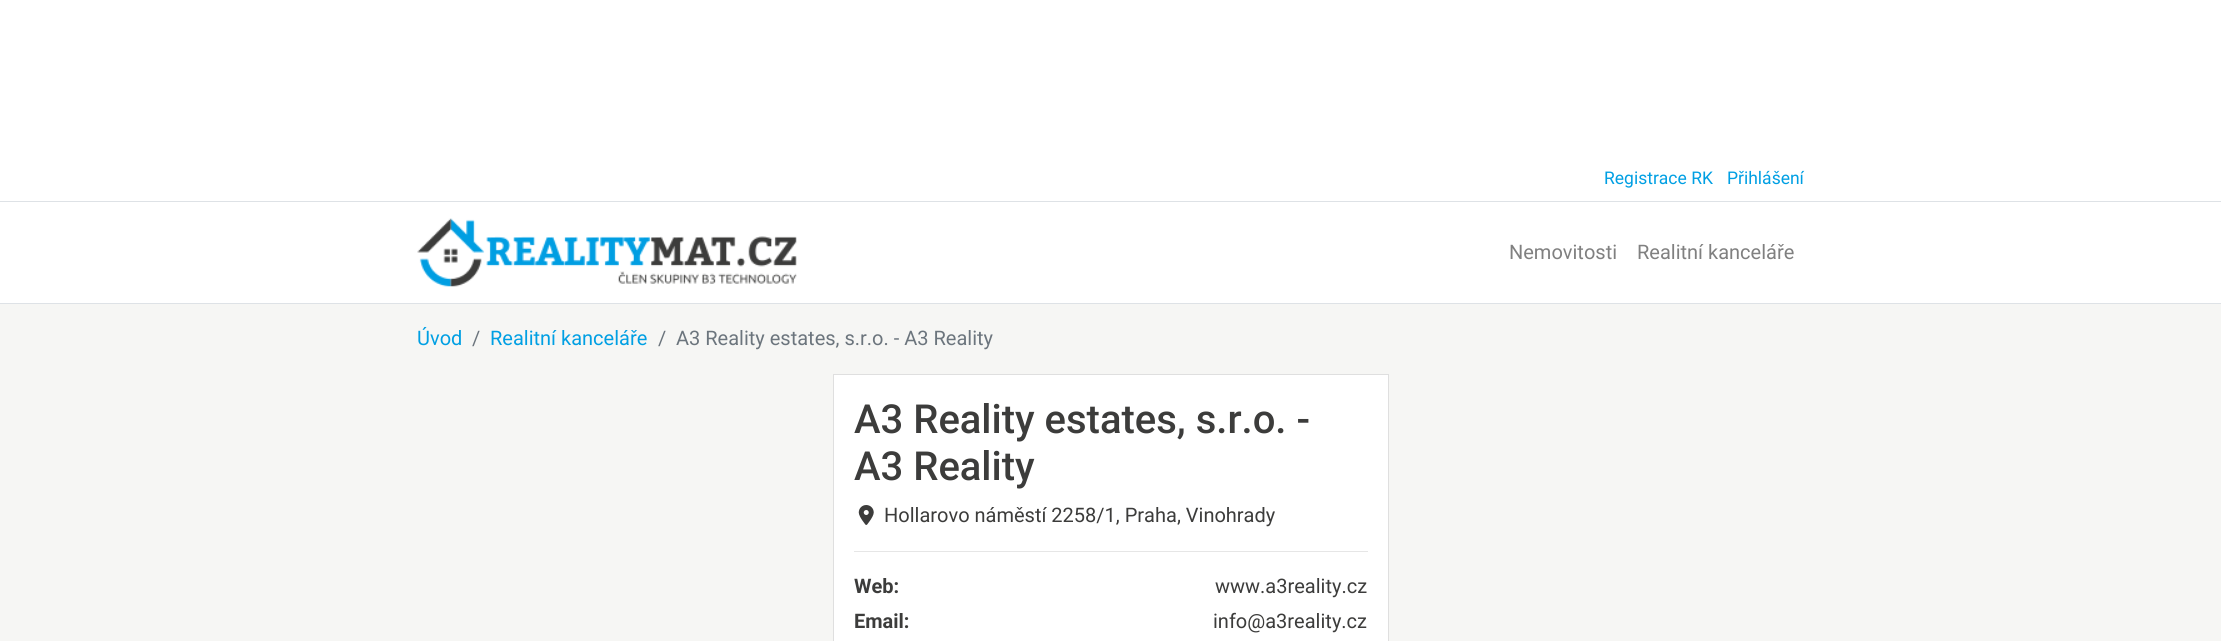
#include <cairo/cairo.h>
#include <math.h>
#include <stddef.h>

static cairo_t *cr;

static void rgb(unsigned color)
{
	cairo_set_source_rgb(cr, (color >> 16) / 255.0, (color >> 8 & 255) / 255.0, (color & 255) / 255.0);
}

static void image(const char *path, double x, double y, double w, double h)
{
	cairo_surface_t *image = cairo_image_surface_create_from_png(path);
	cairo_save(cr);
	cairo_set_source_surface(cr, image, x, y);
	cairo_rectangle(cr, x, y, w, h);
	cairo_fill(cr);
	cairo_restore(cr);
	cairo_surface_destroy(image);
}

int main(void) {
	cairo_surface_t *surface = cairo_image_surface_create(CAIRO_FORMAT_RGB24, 2221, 641);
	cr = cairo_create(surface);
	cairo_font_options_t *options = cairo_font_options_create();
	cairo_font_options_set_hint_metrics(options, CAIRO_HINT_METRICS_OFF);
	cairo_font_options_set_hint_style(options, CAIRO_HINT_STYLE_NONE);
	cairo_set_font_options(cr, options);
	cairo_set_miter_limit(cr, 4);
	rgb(0xffffff);
	cairo_paint(cr);
	rgb(0xdee2e6);
	cairo_rectangle(cr, 0, 201, 2221, 1);
	cairo_fill(cr);
	cairo_rectangle(cr, 0, 303, 2221, 1);
	cairo_fill(cr);
	image("img/1.png", 417, 218, 380, 69);
	rgb(0xf6f6f4);
	cairo_rectangle(cr, 0, 304, 2221, 337);
	cairo_fill(cr);
	rgb(0xffffff);
	cairo_rectangle(cr, 833.5, 374.5, 555, 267);
	cairo_fill_preserve(cr);
	rgb(0xdfdfdf);
	cairo_set_line_width(cr, 1);
	cairo_stroke(cr);
	image("img/2.png", 858, 505, 16, 20);
	rgb(0xe6e6e6);
	cairo_rectangle(cr, 854, 551, 514, 1);
	cairo_fill(cr);
	cairo_select_font_face(cr, "Roboto", CAIRO_FONT_SLANT_NORMAL, CAIRO_FONT_WEIGHT_NORMAL);
	cairo_set_font_size(cr, 17.5);
	rgb(0x009fe3);
	cairo_move_to(cr, 1604, 184);
	cairo_show_text(cr, "Registrace RK");
	cairo_move_to(cr, 1727, 184);
	cairo_show_text(cr, "Přihlášení");
	cairo_set_font_size(cr, 20);
	rgb(0x808080);
	cairo_move_to(cr, 1509, 259);
	cairo_show_text(cr, "Nemovitosti");
	cairo_move_to(cr, 1637, 259);
	cairo_show_text(cr, "Realitní kanceláře");
	rgb(0x009fe3);
	cairo_move_to(cr, 417, 345);
	cairo_show_text(cr, "Úvod");
	rgb(0x6c757d);
	cairo_move_to(cr, 472, 345);
	cairo_show_text(cr, "/");
	rgb(0x009fe3);
	cairo_move_to(cr, 490, 345);
	cairo_show_text(cr, "Realitní kanceláře");
	rgb(0x6c757d);
	cairo_move_to(cr, 658, 345);
	cairo_show_text(cr, "/");
	cairo_move_to(cr, 676, 345);
	cairo_show_text(cr, "A3 Reality estates, s.r.o. - A3 Reality");
	cairo_select_font_face(cr, "Roboto Medium", CAIRO_FONT_SLANT_NORMAL, CAIRO_FONT_WEIGHT_NORMAL);
	cairo_set_font_size(cr, 40);
	rgb(0x3c3c3b);
	cairo_move_to(cr, 854, 433);
	cairo_show_text(cr, "A3 Reality estates, s.r.o. -");
	cairo_move_to(cr, 854, 480);
	cairo_show_text(cr, "A3 Reality");
	cairo_select_font_face(cr, "Roboto", CAIRO_FONT_SLANT_NORMAL, CAIRO_FONT_WEIGHT_NORMAL);
	cairo_set_font_size(cr, 20);
	cairo_move_to(cr, 884, 522);
	cairo_show_text(cr, "Hollarovo náměstí 2258/1, Praha, Vinohrady");
	cairo_select_font_face(cr, "Roboto", CAIRO_FONT_SLANT_NORMAL, CAIRO_FONT_WEIGHT_BOLD);
	cairo_move_to(cr, 854, 593);
	cairo_show_text(cr, "Web:");
	cairo_select_font_face(cr, "Roboto", CAIRO_FONT_SLANT_NORMAL, CAIRO_FONT_WEIGHT_NORMAL);
	cairo_move_to(cr, 1215, 593);
	cairo_show_text(cr, "www.a3reality.cz");
	cairo_select_font_face(cr, "Roboto", CAIRO_FONT_SLANT_NORMAL, CAIRO_FONT_WEIGHT_BOLD);
	cairo_move_to(cr, 854, 628);
	cairo_show_text(cr, "Email:");
	cairo_select_font_face(cr, "Roboto", CAIRO_FONT_SLANT_NORMAL, CAIRO_FONT_WEIGHT_NORMAL);
	cairo_move_to(cr, 1213, 628);
	cairo_show_text(cr, "info@a3reality.cz");
	cairo_surface_write_to_png(surface, "page.png");
	cairo_font_options_destroy(options);
	cairo_destroy(cr);
	cairo_surface_destroy(surface);
	return 0;
}
